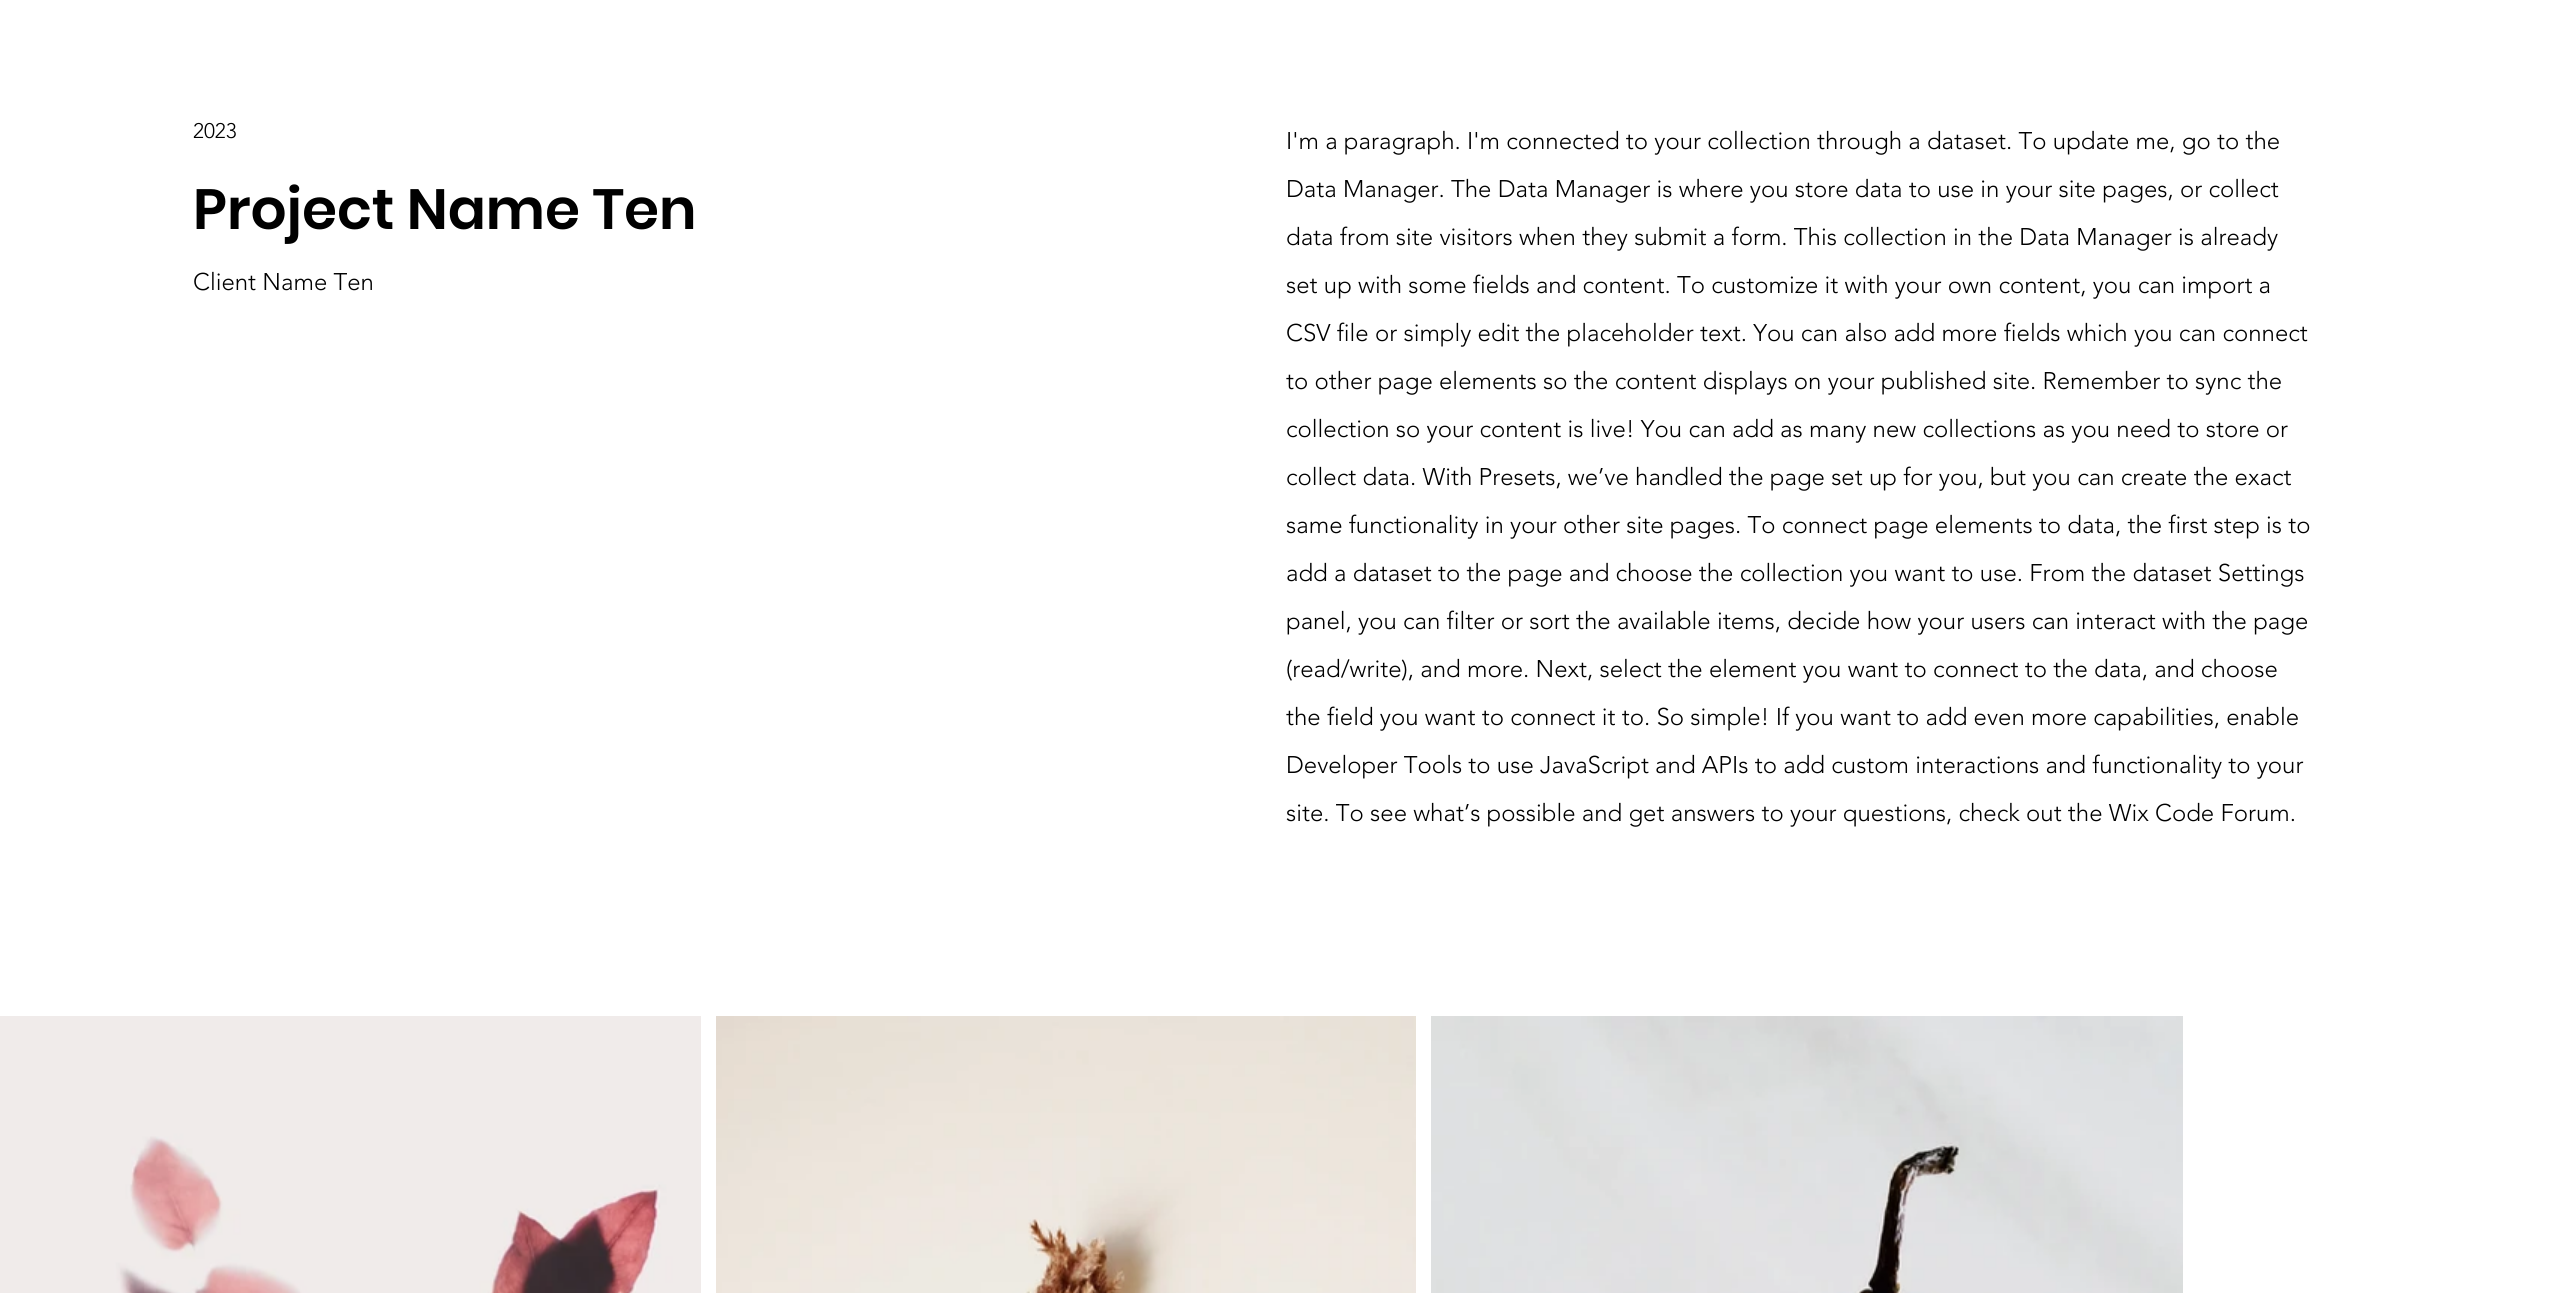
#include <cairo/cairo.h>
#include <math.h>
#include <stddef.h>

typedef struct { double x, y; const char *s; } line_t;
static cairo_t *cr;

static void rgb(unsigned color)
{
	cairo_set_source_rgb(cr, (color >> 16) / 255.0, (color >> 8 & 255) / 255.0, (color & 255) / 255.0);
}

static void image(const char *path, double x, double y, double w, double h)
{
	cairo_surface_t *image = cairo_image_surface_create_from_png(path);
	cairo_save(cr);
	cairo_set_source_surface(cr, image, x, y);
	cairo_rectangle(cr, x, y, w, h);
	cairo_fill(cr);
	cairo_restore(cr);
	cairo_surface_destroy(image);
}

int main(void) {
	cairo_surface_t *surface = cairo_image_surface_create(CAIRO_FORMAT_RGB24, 2572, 1293);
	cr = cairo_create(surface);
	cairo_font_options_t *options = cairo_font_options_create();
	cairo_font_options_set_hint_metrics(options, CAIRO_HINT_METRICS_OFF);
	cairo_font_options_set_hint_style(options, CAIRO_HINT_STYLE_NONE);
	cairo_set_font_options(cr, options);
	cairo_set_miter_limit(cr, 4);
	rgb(0xffffff);
	cairo_paint(cr);
	image("img/1.png", 0, 1016, 701, 277);
	image("img/2.png", 716, 1016, 700, 277);
	image("img/3.png", 1431, 1016, 752, 277);
	cairo_select_font_face(cr, "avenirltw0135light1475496 Light", CAIRO_FONT_SLANT_NORMAL, CAIRO_FONT_WEIGHT_NORMAL);
	cairo_set_font_size(cr, 21);
	rgb(0x000000);
	cairo_move_to(cr, 193, 138);
	cairo_show_text(cr, "2023");
	cairo_select_font_face(cr, "Poppins SemiBold", CAIRO_FONT_SLANT_NORMAL, CAIRO_FONT_WEIGHT_NORMAL);
	cairo_set_font_size(cr, 56.5);
	cairo_move_to(cr, 193, 229);
	cairo_show_text(cr, "Project Name Ten");
	cairo_select_font_face(cr, "avenirltw0135light1475496 Light", CAIRO_FONT_SLANT_NORMAL, CAIRO_FONT_WEIGHT_NORMAL);
	cairo_set_font_size(cr, 24);
	{
		static const line_t items[] = {
			{193, 290, "Client Name Ten"},
			{1286, 149, "I'm a paragraph. I'm connected to your collection through a dataset. To update me, go to the"},
			{1286, 197, "Data Manager. The Data Manager is where you store data to use in your site pages, or collect"},
			{1286, 245, "data from site visitors when they submit a form. This collection in the Data Manager is already"},
			{1286, 293, "set up with some fields and content. To customize it with your own content, you can import a"},
			{1286, 341, "CSV file or simply edit the placeholder text. You can also add more fields which you can connect"},
			{1286, 389, "to other page elements so the content displays on your published site. Remember to sync the"},
			{1286, 437, "collection so your content is live! You can add as many new collections as you need to store or"},
			{1286, 485, "collect data. With Presets, we’ve handled the page set up for you, but you can create the exact"},
			{1286, 533, "same functionality in your other site pages. To connect page elements to data, the first step is to"},
			{1286, 581, "add a dataset to the page and choose the collection you want to use. From the dataset Settings"},
			{1286, 629, "panel, you can filter or sort the available items, decide how your users can interact with the page"},
			{1286, 677, "(read/write), and more. Next, select the element you want to connect to the data, and choose"},
			{1286, 725, "the field you want to connect it to. So simple! If you want to add even more capabilities, enable"},
			{1286, 773, "Developer Tools to use JavaScript and APIs to add custom interactions and functionality to your"},
			{1286, 821, "site. To see what’s possible and get answers to your questions, check out the Wix Code Forum."},
		};
		for (size_t i = 0; i < sizeof items / sizeof *items; i++) {
			cairo_move_to(cr, items[i].x, items[i].y);
			cairo_show_text(cr, items[i].s);
		}
	}
	cairo_surface_write_to_png(surface, "page.png");
	cairo_font_options_destroy(options);
	cairo_destroy(cr);
	cairo_surface_destroy(surface);
	return 0;
}
